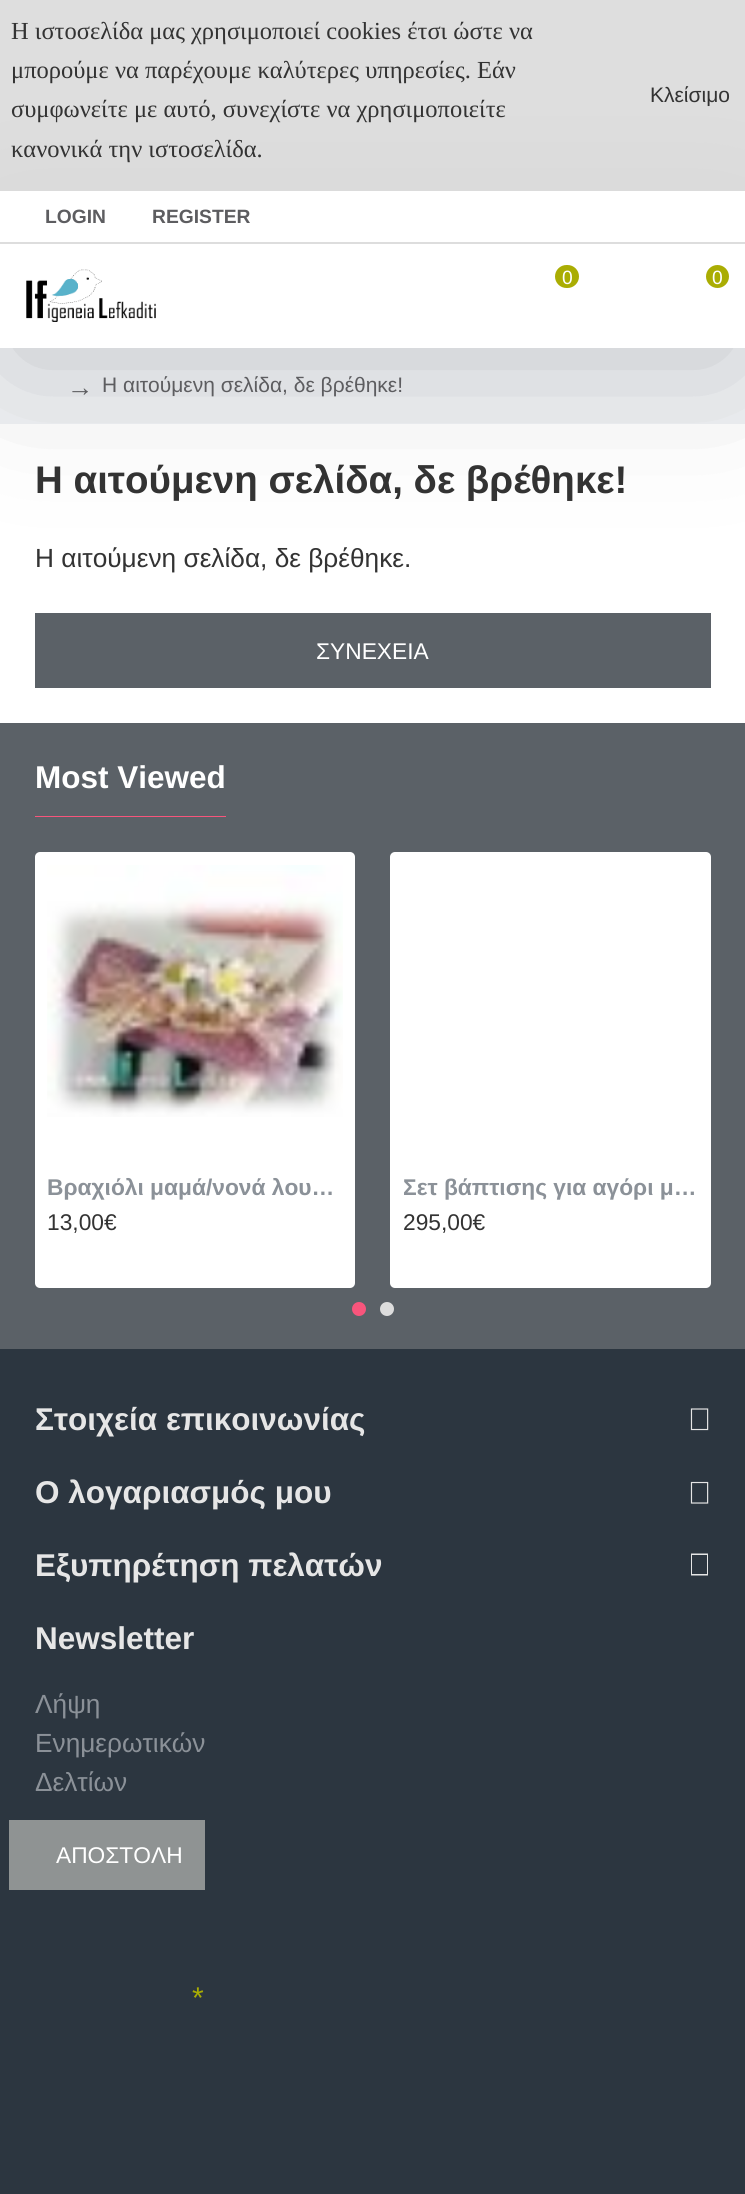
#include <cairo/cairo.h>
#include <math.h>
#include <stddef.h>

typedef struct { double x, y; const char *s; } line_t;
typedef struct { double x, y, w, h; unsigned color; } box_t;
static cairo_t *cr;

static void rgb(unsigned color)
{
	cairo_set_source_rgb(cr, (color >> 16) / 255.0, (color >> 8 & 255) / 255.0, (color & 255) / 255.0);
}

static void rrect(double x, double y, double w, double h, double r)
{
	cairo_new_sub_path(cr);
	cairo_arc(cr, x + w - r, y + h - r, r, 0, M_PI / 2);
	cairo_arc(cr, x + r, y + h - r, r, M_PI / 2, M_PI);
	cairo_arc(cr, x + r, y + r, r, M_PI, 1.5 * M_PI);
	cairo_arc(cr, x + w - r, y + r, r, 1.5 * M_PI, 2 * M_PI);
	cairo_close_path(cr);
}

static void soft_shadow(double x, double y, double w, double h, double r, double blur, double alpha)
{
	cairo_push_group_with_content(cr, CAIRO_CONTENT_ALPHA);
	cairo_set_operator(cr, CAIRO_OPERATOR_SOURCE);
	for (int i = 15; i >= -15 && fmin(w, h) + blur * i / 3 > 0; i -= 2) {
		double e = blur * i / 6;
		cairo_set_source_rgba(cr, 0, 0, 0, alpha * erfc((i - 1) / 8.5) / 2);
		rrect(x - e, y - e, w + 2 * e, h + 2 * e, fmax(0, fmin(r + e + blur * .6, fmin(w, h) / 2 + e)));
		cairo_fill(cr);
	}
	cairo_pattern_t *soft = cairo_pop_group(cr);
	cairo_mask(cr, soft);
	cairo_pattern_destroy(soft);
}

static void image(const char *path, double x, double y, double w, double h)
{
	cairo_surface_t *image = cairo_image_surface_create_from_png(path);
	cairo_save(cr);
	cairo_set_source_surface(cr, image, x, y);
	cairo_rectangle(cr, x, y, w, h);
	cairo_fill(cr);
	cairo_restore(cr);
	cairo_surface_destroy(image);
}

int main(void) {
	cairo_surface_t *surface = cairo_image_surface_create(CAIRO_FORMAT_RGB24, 745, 2194);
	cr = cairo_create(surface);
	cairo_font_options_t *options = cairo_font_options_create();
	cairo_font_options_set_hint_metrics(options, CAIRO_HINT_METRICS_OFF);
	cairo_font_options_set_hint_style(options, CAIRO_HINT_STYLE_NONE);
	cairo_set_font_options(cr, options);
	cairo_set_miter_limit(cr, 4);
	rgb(0xffffff);
	cairo_paint(cr);
	rgb(0xdedede);
	cairo_rectangle(cr, 0, 0, 745, 191);
	cairo_fill(cr);
	rgb(0xf0f2f5);
	cairo_rectangle(cr, 0, 348, 745, 76);
	cairo_fill(cr);
	rgb(0x000000);
	soft_shadow(18, 287, 710, 70, 0, 79, 0.2);
	{
		static const box_t items[] = {
			{0, 191, 745, 51, 0xffffff},
			{0, 242, 745, 2, 0xdddddd},
			{0, 244, 745, 104, 0xffffff},
		};
		for (size_t i = 0; i < sizeof items / sizeof *items; i++) {
			rgb(items[i].color);
			cairo_rectangle(cr, items[i].x, items[i].y, items[i].w, items[i].h);
			cairo_fill(cr);
		}
	}
	image("img/1.png", 26, 269, 130, 53);
	rgb(0xaaad03);
	rrect(553, 263, 28, 27, 13.5);
	cairo_fill_preserve(cr);
	rgb(0xffffff);
	cairo_set_line_width(cr, 4);
	cairo_stroke(cr);
	rgb(0xaaad03);
	cairo_arc(cr, 717.5, 276.5, 13.5, 0, 2 * M_PI);
	cairo_fill_preserve(cr);
	rgb(0xffffff);
	cairo_stroke(cr);
	{
		static const box_t items[] = {
			{35, 613, 676, 75, 0x5b6167},
			{0, 1349, 745, 845, 0x2c3640},
			{0, 723, 745, 626, 0x5b6167},
			{35, 816, 191, 1, 0xf9557c},
		};
		for (size_t i = 0; i < sizeof items / sizeof *items; i++) {
			rgb(items[i].color);
			cairo_rectangle(cr, items[i].x, items[i].y, items[i].w, items[i].h);
			cairo_fill(cr);
		}
	}
	rgb(0xffffff);
	rrect(35, 852, 320, 436, 5);
	cairo_fill(cr);
	image("img/2.png", 47, 865, 296, 252);
	rrect(390, 852, 321, 436, 5);
	cairo_fill(cr);
	rgb(0xf9557c);
	cairo_arc(cr, 359, 1309, 7, 0, 2 * M_PI);
	cairo_fill(cr);
	rgb(0xdddddd);
	cairo_arc(cr, 387, 1309, 7, 0, 2 * M_PI);
	cairo_fill(cr);
	image("img/3.png", 690, 1408, 19, 23);
	image("img/4.png", 690, 1481, 19, 23);
	rgb(0xe6e6e6);
	cairo_new_path(cr);
	cairo_move_to(cr, 691, 1553.5);
	cairo_line_to(cr, 708, 1553.5);
	cairo_line_to(cr, 708, 1575.5);
	cairo_line_to(cr, 691, 1575.5);
	cairo_close_path(cr);
	cairo_move_to(cr, 692, 1555);
	cairo_line_to(cr, 692, 1574);
	cairo_line_to(cr, 707, 1574);
	cairo_line_to(cr, 707, 1555);
	cairo_close_path(cr);
	cairo_fill(cr);
	rgb(0x8f9393);
	cairo_rectangle(cr, 9, 1820, 196, 70);
	cairo_fill(cr);
	cairo_select_font_face(cr, "Liberation Serif", CAIRO_FONT_SLANT_NORMAL, CAIRO_FONT_WEIGHT_NORMAL);
	cairo_set_font_size(cr, 24.5);
	rgb(0x333333);
	{
		static const line_t items[] = {
			{11, 39, "Η ιστοσελίδα μας χρησιμοποιεί cookies έτσι ώστε να"},
			{11, 78, "μπορούμε να παρέχουμε καλύτερες υπηρεσίες. Εάν"},
			{11, 117, "συμφωνείτε με αυτό, συνεχίστε να χρησιμοποιείτε"},
			{11, 157, "κανονικά την ιστοσελίδα."},
		};
		for (size_t i = 0; i < sizeof items / sizeof *items; i++) {
			cairo_move_to(cr, items[i].x, items[i].y);
			cairo_show_text(cr, items[i].s);
		}
	}
	cairo_select_font_face(cr, "Liberation Sans", CAIRO_FONT_SLANT_NORMAL, CAIRO_FONT_WEIGHT_NORMAL);
	cairo_set_font_size(cr, 21);
	cairo_move_to(cr, 650, 102);
	cairo_show_text(cr, "Κλείσιμο");
	cairo_select_font_face(cr, "Liberation Sans", CAIRO_FONT_SLANT_NORMAL, CAIRO_FONT_WEIGHT_BOLD);
	cairo_set_font_size(cr, 19.25);
	rgb(0x5d5d60);
	cairo_move_to(cr, 45, 223);
	cairo_show_text(cr, "LOGIN");
	cairo_move_to(cr, 152, 223);
	cairo_show_text(cr, "REGISTER");
	cairo_select_font_face(cr, "Liberation Sans", CAIRO_FONT_SLANT_NORMAL, CAIRO_FONT_WEIGHT_NORMAL);
	rgb(0xffffff);
	cairo_move_to(cr, 562, 284);
	cairo_show_text(cr, "0");
	cairo_move_to(cr, 712, 284);
	cairo_show_text(cr, "0");
	cairo_set_font_size(cr, 26.25);
	rgb(0x5d5d60);
	cairo_move_to(cr, 67, 396);
	cairo_show_text(cr, "→");
	cairo_set_font_size(cr, 21);
	cairo_move_to(cr, 102, 392);
	cairo_show_text(cr, "Η αιτούμενη σελίδα, δε βρέθηκε!");
	cairo_select_font_face(cr, "Liberation Sans", CAIRO_FONT_SLANT_NORMAL, CAIRO_FONT_WEIGHT_BOLD);
	cairo_set_font_size(cr, 38.5);
	rgb(0x333333);
	cairo_move_to(cr, 35, 493);
	cairo_show_text(cr, "Η αιτούμενη σελίδα, δε βρέθηκε!");
	cairo_select_font_face(cr, "Liberation Sans", CAIRO_FONT_SLANT_NORMAL, CAIRO_FONT_WEIGHT_NORMAL);
	cairo_set_font_size(cr, 26.25);
	cairo_move_to(cr, 35, 567);
	cairo_show_text(cr, "Η αιτούμενη σελίδα, δε βρέθηκε.");
	cairo_set_font_size(cr, 22.75);
	rgb(0xffffff);
	cairo_move_to(cr, 316, 659);
	cairo_show_text(cr, "ΣΥΝΕΧΕΙΑ");
	cairo_select_font_face(cr, "Liberation Sans", CAIRO_FONT_SLANT_NORMAL, CAIRO_FONT_WEIGHT_BOLD);
	cairo_set_font_size(cr, 31.5);
	cairo_move_to(cr, 35, 788);
	cairo_show_text(cr, "Most Viewed");
	cairo_set_font_size(cr, 22.75);
	rgb(0x8b9198);
	cairo_move_to(cr, 47, 1195);
	cairo_show_text(cr, "Βραχιόλι μαμά/νονά λου…");
	cairo_select_font_face(cr, "Liberation Sans", CAIRO_FONT_SLANT_NORMAL, CAIRO_FONT_WEIGHT_NORMAL);
	rgb(0x333333);
	cairo_move_to(cr, 47, 1230);
	cairo_show_text(cr, "13,00€");
	cairo_select_font_face(cr, "Liberation Sans", CAIRO_FONT_SLANT_NORMAL, CAIRO_FONT_WEIGHT_BOLD);
	rgb(0x8b9198);
	cairo_move_to(cr, 403, 1195);
	cairo_show_text(cr, "Σετ βάπτισης για αγόρι μ…");
	cairo_select_font_face(cr, "Liberation Sans", CAIRO_FONT_SLANT_NORMAL, CAIRO_FONT_WEIGHT_NORMAL);
	rgb(0x333333);
	cairo_move_to(cr, 403, 1230);
	cairo_show_text(cr, "295,00€");
	cairo_select_font_face(cr, "Liberation Sans", CAIRO_FONT_SLANT_NORMAL, CAIRO_FONT_WEIGHT_BOLD);
	cairo_set_font_size(cr, 31.5);
	rgb(0xe6e6e6);
	{
		static const line_t items[] = {
			{35, 1430, "Στοιχεία επικοινωνίας"},
			{35, 1503, "Ο λογαριασμός μου"},
			{35, 1576, "Εξυπηρέτηση πελατών"},
			{35, 1649, "Newsletter"},
		};
		for (size_t i = 0; i < sizeof items / sizeof *items; i++) {
			cairo_move_to(cr, items[i].x, items[i].y);
			cairo_show_text(cr, items[i].s);
		}
	}
	cairo_select_font_face(cr, "Liberation Sans", CAIRO_FONT_SLANT_NORMAL, CAIRO_FONT_WEIGHT_NORMAL);
	cairo_set_font_size(cr, 26.25);
	rgb(0x8b9198);
	{
		static const line_t items[] = {
			{35, 1713, "Λήψη"},
			{35, 1752, "Ενημερωτικών"},
			{35, 1791, "Δελτίων"},
		};
		for (size_t i = 0; i < sizeof items / sizeof *items; i++) {
			cairo_move_to(cr, items[i].x, items[i].y);
			cairo_show_text(cr, items[i].s);
		}
	}
	cairo_set_font_size(cr, 22.75);
	rgb(0xffffff);
	cairo_move_to(cr, 56, 1863);
	cairo_show_text(cr, "ΑΠΟΣΤΟΛΗ");
	cairo_set_font_size(cr, 30);
	rgb(0xaaad03);
	cairo_move_to(cr, 192, 2008);
	cairo_show_text(cr, "*");
	cairo_surface_write_to_png(surface, "page.png");
	cairo_font_options_destroy(options);
	cairo_destroy(cr);
	cairo_surface_destroy(surface);
	return 0;
}
